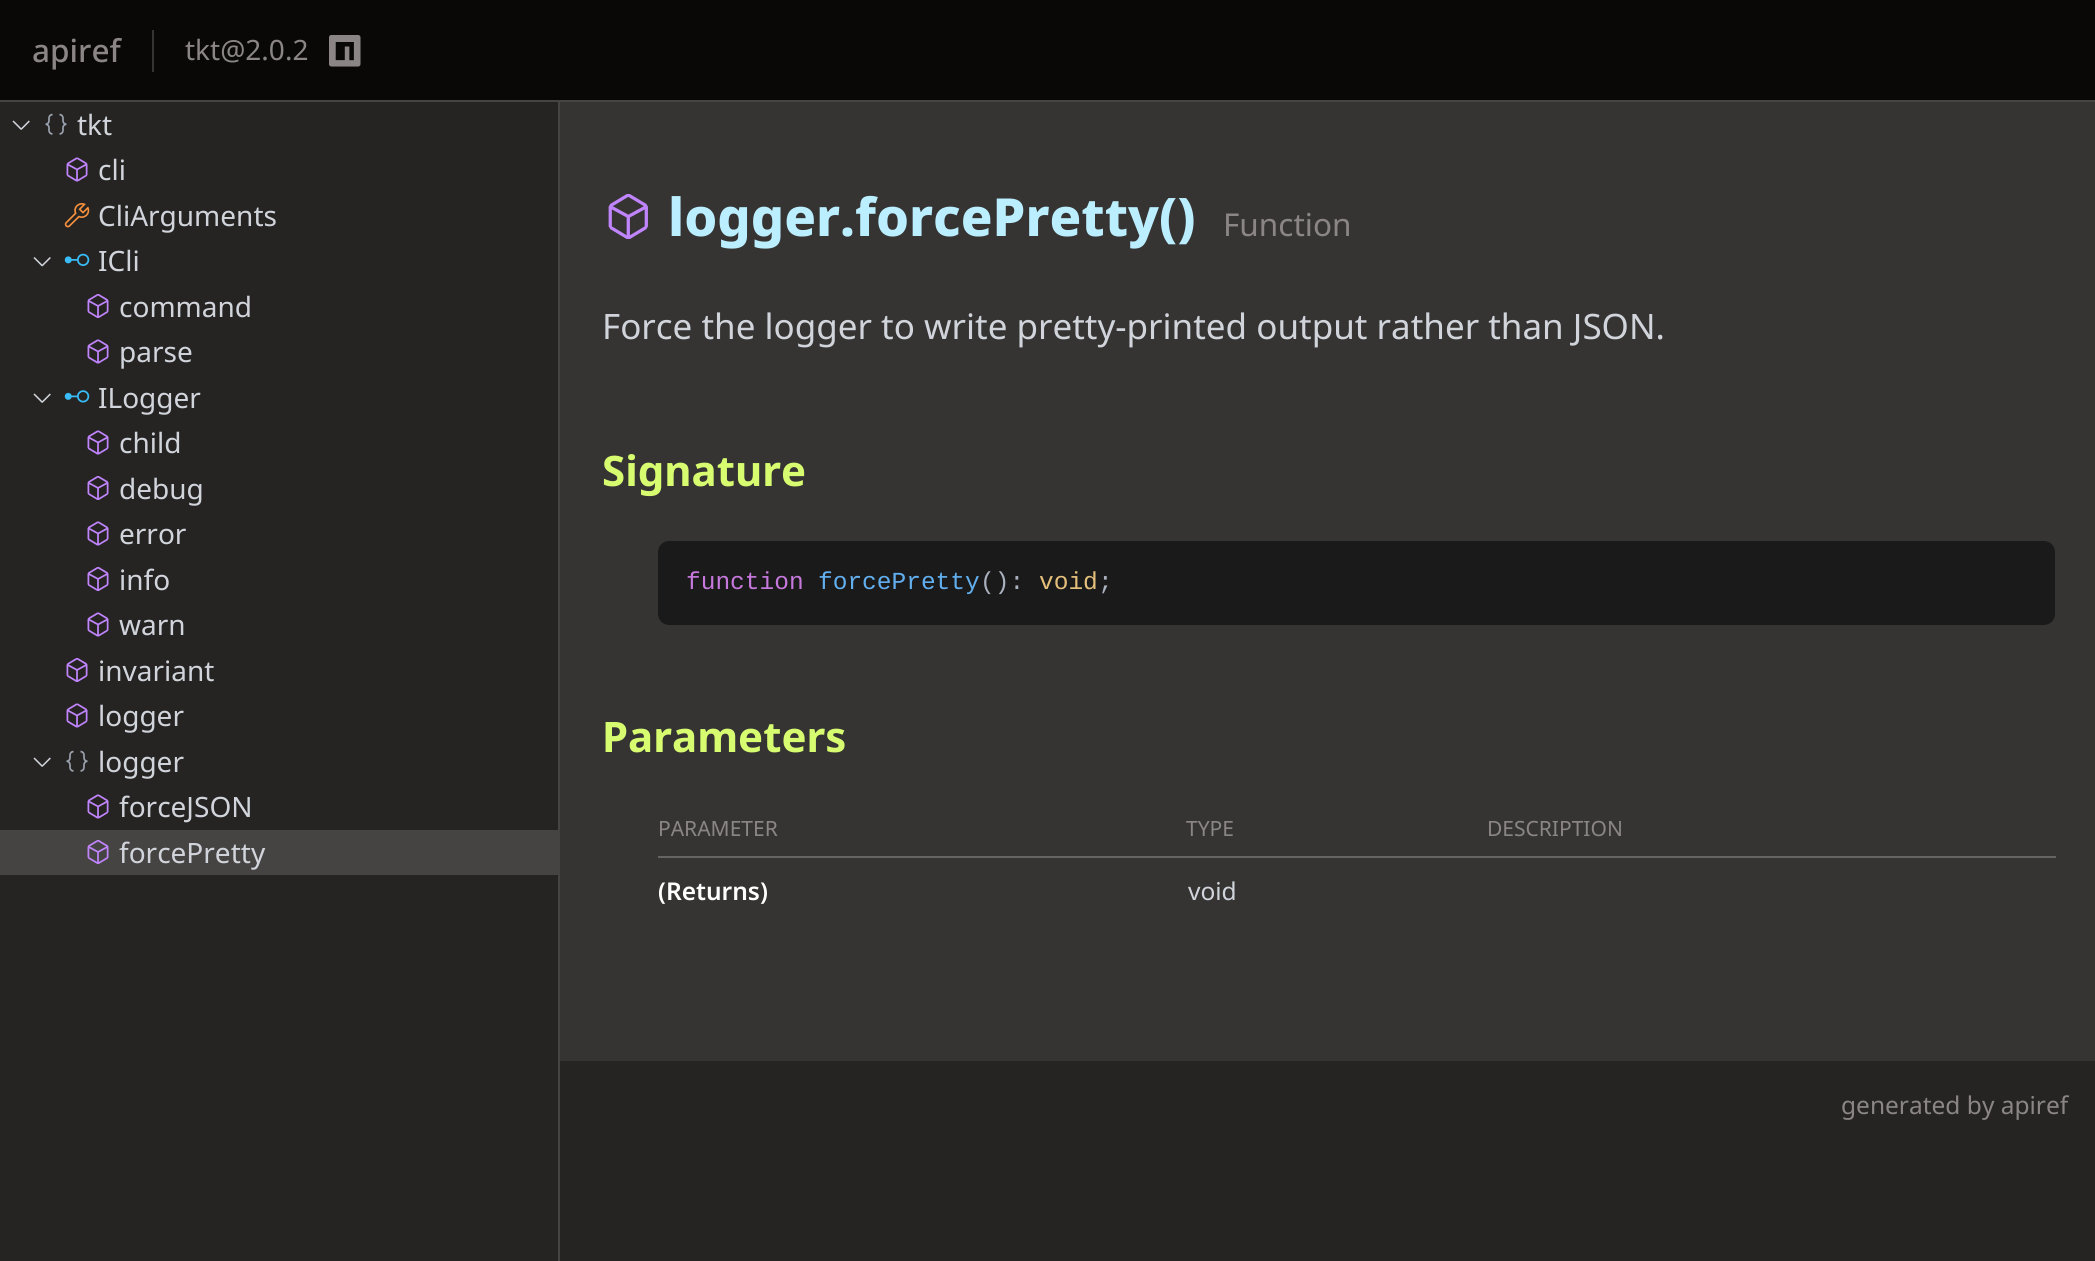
#include <cairo/cairo.h>
#include <math.h>
#include <stddef.h>

typedef struct { double x, y; const char *s; } line_t;
typedef struct { double x, y, w, h; unsigned color; } box_t;
static cairo_t *cr;

static void rgb(unsigned color)
{
	cairo_set_source_rgb(cr, (color >> 16) / 255.0, (color >> 8 & 255) / 255.0, (color & 255) / 255.0);
}

static void rrect(double x, double y, double w, double h, double r)
{
	cairo_new_sub_path(cr);
	cairo_arc(cr, x + w - r, y + h - r, r, 0, M_PI / 2);
	cairo_arc(cr, x + r, y + h - r, r, M_PI / 2, M_PI);
	cairo_arc(cr, x + r, y + r, r, M_PI, 1.5 * M_PI);
	cairo_arc(cr, x + w - r, y + r, r, 1.5 * M_PI, 2 * M_PI);
	cairo_close_path(cr);
}

static void image(const char *path, double x, double y, double w, double h)
{
	cairo_surface_t *image = cairo_image_surface_create_from_png(path);
	cairo_save(cr);
	cairo_set_source_surface(cr, image, x, y);
	cairo_rectangle(cr, x, y, w, h);
	cairo_fill(cr);
	cairo_restore(cr);
	cairo_surface_destroy(image);
}

int main(void) {
	cairo_surface_t *surface = cairo_image_surface_create(CAIRO_FORMAT_RGB24, 2095, 1261);
	cr = cairo_create(surface);
	cairo_font_options_t *options = cairo_font_options_create();
	cairo_font_options_set_hint_metrics(options, CAIRO_HINT_METRICS_OFF);
	cairo_font_options_set_hint_style(options, CAIRO_HINT_STYLE_NONE);
	cairo_set_font_options(cr, options);
	cairo_set_miter_limit(cr, 4);
	rgb(0x252423);
	cairo_paint(cr);
	{
		static const box_t items[] = {
			{0, 0, 2095, 100, 0x090807},
			{0, 100, 2095, 2, 0x454443},
			{152, 30, 2, 42, 0x353433},
		};
		for (size_t i = 0; i < sizeof items / sizeof *items; i++) {
			rgb(items[i].color);
			cairo_rectangle(cr, items[i].x, items[i].y, items[i].w, items[i].h);
			cairo_fill(cr);
		}
	}
	image("img/1.png", 329, 35, 32, 32);
	rgb(0x454443);
	cairo_rectangle(cr, 558, 102, 2, 1159);
	cairo_fill(cr);
	image("img/2.png", 12, 120, 18, 10);
	image("img/3.png", 45, 113, 22, 22);
	image("img/4.png", 66, 157, 22, 25);
	image("img/5.png", 64, 203, 26, 25);
	image("img/6.png", 33, 257, 18, 10);
	image("img/7.png", 64, 253, 26, 13);
	image("img/8.png", 87, 294, 22, 24);
	image("img/4.png", 87, 339, 22, 25);
	image("img/2.png", 33, 393, 18, 10);
	image("img/9.png", 64, 390, 26, 13);
	image("img/4.png", 87, 430, 22, 25);
	image("img/8.png", 87, 476, 22, 24);
	image("img/4.png", 87, 521, 22, 25);
	image("img/8.png", 87, 567, 22, 24);
	image("img/4.png", 87, 612, 22, 25);
	image("img/8.png", 66, 658, 22, 24);
	image("img/4.png", 66, 703, 22, 25);
	image("img/2.png", 33, 757, 18, 10);
	image("img/3.png", 66, 750, 22, 22);
	image("img/4.png", 87, 794, 22, 25);
	cairo_rectangle(cr, 0, 830, 558, 45);
	cairo_fill(cr);
	image("img/10.png", 87, 840, 22, 24);
	rgb(0x353433);
	cairo_rectangle(cr, 560, 102, 1535, 959);
	cairo_fill(cr);
	image("img/11.png", 608, 194, 40, 45);
	rgb(0x1b1a1a);
	rrect(658, 541, 1397, 84, 11);
	cairo_fill(cr);
	rgb(0x656463);
	cairo_rectangle(cr, 658, 856, 1398, 2);
	cairo_fill(cr);
	cairo_select_font_face(cr, "Noto Sans Medium", CAIRO_FONT_SLANT_NORMAL, CAIRO_FONT_WEIGHT_NORMAL);
	cairo_set_font_size(cr, 31.5);
	rgb(0x8b8685);
	cairo_move_to(cr, 32, 62);
	cairo_show_text(cr, "apiref");
	cairo_select_font_face(cr, "Noto Sans", CAIRO_FONT_SLANT_NORMAL, CAIRO_FONT_WEIGHT_NORMAL);
	cairo_set_font_size(cr, 28);
	cairo_move_to(cr, 185, 60);
	cairo_show_text(cr, "tkt@2.0.2");
	rgb(0xd1d5db);
	{
		static const line_t items[] = {
			{77, 135, "tkt"},
			{98, 180, "cli"},
			{98, 226, "CliArguments"},
			{98, 271, "ICli"},
			{119, 317, "command"},
			{119, 362, "parse"},
			{98, 408, "ILogger"},
			{119, 453, "child"},
			{119, 499, "debug"},
			{119, 544, "error"},
			{119, 590, "info"},
			{119, 635, "warn"},
			{98, 681, "invariant"},
			{98, 726, "logger"},
			{98, 772, "logger"},
			{119, 817, "forceJSON"},
			{119, 863, "forcePretty"},
		};
		for (size_t i = 0; i < sizeof items / sizeof *items; i++) {
			cairo_move_to(cr, items[i].x, items[i].y);
			cairo_show_text(cr, items[i].s);
		}
	}
	cairo_select_font_face(cr, "Noto Sans ExtraBold", CAIRO_FONT_SLANT_NORMAL, CAIRO_FONT_WEIGHT_NORMAL);
	cairo_set_font_size(cr, 52.5);
	rgb(0xbbeeff);
	cairo_move_to(cr, 668, 236);
	cairo_show_text(cr, "logger.forcePretty()");
	cairo_select_font_face(cr, "Noto Sans", CAIRO_FONT_SLANT_NORMAL, CAIRO_FONT_WEIGHT_NORMAL);
	cairo_set_font_size(cr, 31.5);
	rgb(0x8b8685);
	cairo_move_to(cr, 1223, 236);
	cairo_show_text(cr, "Function");
	cairo_set_font_size(cr, 35);
	rgb(0xd1d5db);
	cairo_move_to(cr, 602, 339);
	cairo_show_text(cr, "Force the logger to write pretty-printed output rather than JSON.");
	cairo_select_font_face(cr, "Noto Sans", CAIRO_FONT_SLANT_NORMAL, CAIRO_FONT_WEIGHT_BOLD);
	cairo_set_font_size(cr, 42);
	rgb(0xd7fc70);
	cairo_move_to(cr, 602, 486);
	cairo_show_text(cr, "Signature");
	cairo_select_font_face(cr, "Liberation Mono", CAIRO_FONT_SLANT_NORMAL, CAIRO_FONT_WEIGHT_NORMAL);
	cairo_set_font_size(cr, 24.5);
	rgb(0xc678dd);
	cairo_move_to(cr, 686, 589);
	cairo_show_text(cr, "function");
	rgb(0x61afef);
	cairo_move_to(cr, 818, 589);
	cairo_show_text(cr, "forcePretty");
	rgb(0xabb2bf);
	cairo_move_to(cr, 980, 589);
	cairo_show_text(cr, "():");
	rgb(0xe5c07b);
	cairo_move_to(cr, 1039, 589);
	cairo_show_text(cr, "void");
	rgb(0xabb2bf);
	cairo_move_to(cr, 1098, 589);
	cairo_show_text(cr, ";");
	cairo_select_font_face(cr, "Noto Sans", CAIRO_FONT_SLANT_NORMAL, CAIRO_FONT_WEIGHT_BOLD);
	cairo_set_font_size(cr, 42);
	rgb(0xd7fc70);
	cairo_move_to(cr, 602, 752);
	cairo_show_text(cr, "Parameters");
	cairo_select_font_face(cr, "Noto Sans", CAIRO_FONT_SLANT_NORMAL, CAIRO_FONT_WEIGHT_NORMAL);
	cairo_set_font_size(cr, 21);
	rgb(0x8b8685);
	{
		static const line_t items[] = {
			{658, 836, "PARAMETER"},
			{1186, 836, "TYPE"},
			{1487, 836, "DESCRIPTION"},
		};
		for (size_t i = 0; i < sizeof items / sizeof *items; i++) {
			cairo_move_to(cr, items[i].x, items[i].y);
			cairo_show_text(cr, items[i].s);
		}
	}
	cairo_select_font_face(cr, "Noto Sans SemiBold", CAIRO_FONT_SLANT_NORMAL, CAIRO_FONT_WEIGHT_NORMAL);
	cairo_set_font_size(cr, 24.5);
	rgb(0xffffff);
	cairo_move_to(cr, 658, 900);
	cairo_show_text(cr, "(Returns)");
	cairo_select_font_face(cr, "Noto Sans", CAIRO_FONT_SLANT_NORMAL, CAIRO_FONT_WEIGHT_NORMAL);
	rgb(0xd1d5db);
	cairo_move_to(cr, 1188, 900);
	cairo_show_text(cr, "void");
	rgb(0x8b8685);
	cairo_move_to(cr, 1841, 1114);
	cairo_show_text(cr, "generated by apiref");
	cairo_surface_write_to_png(surface, "page.png");
	cairo_font_options_destroy(options);
	cairo_destroy(cr);
	cairo_surface_destroy(surface);
	return 0;
}
